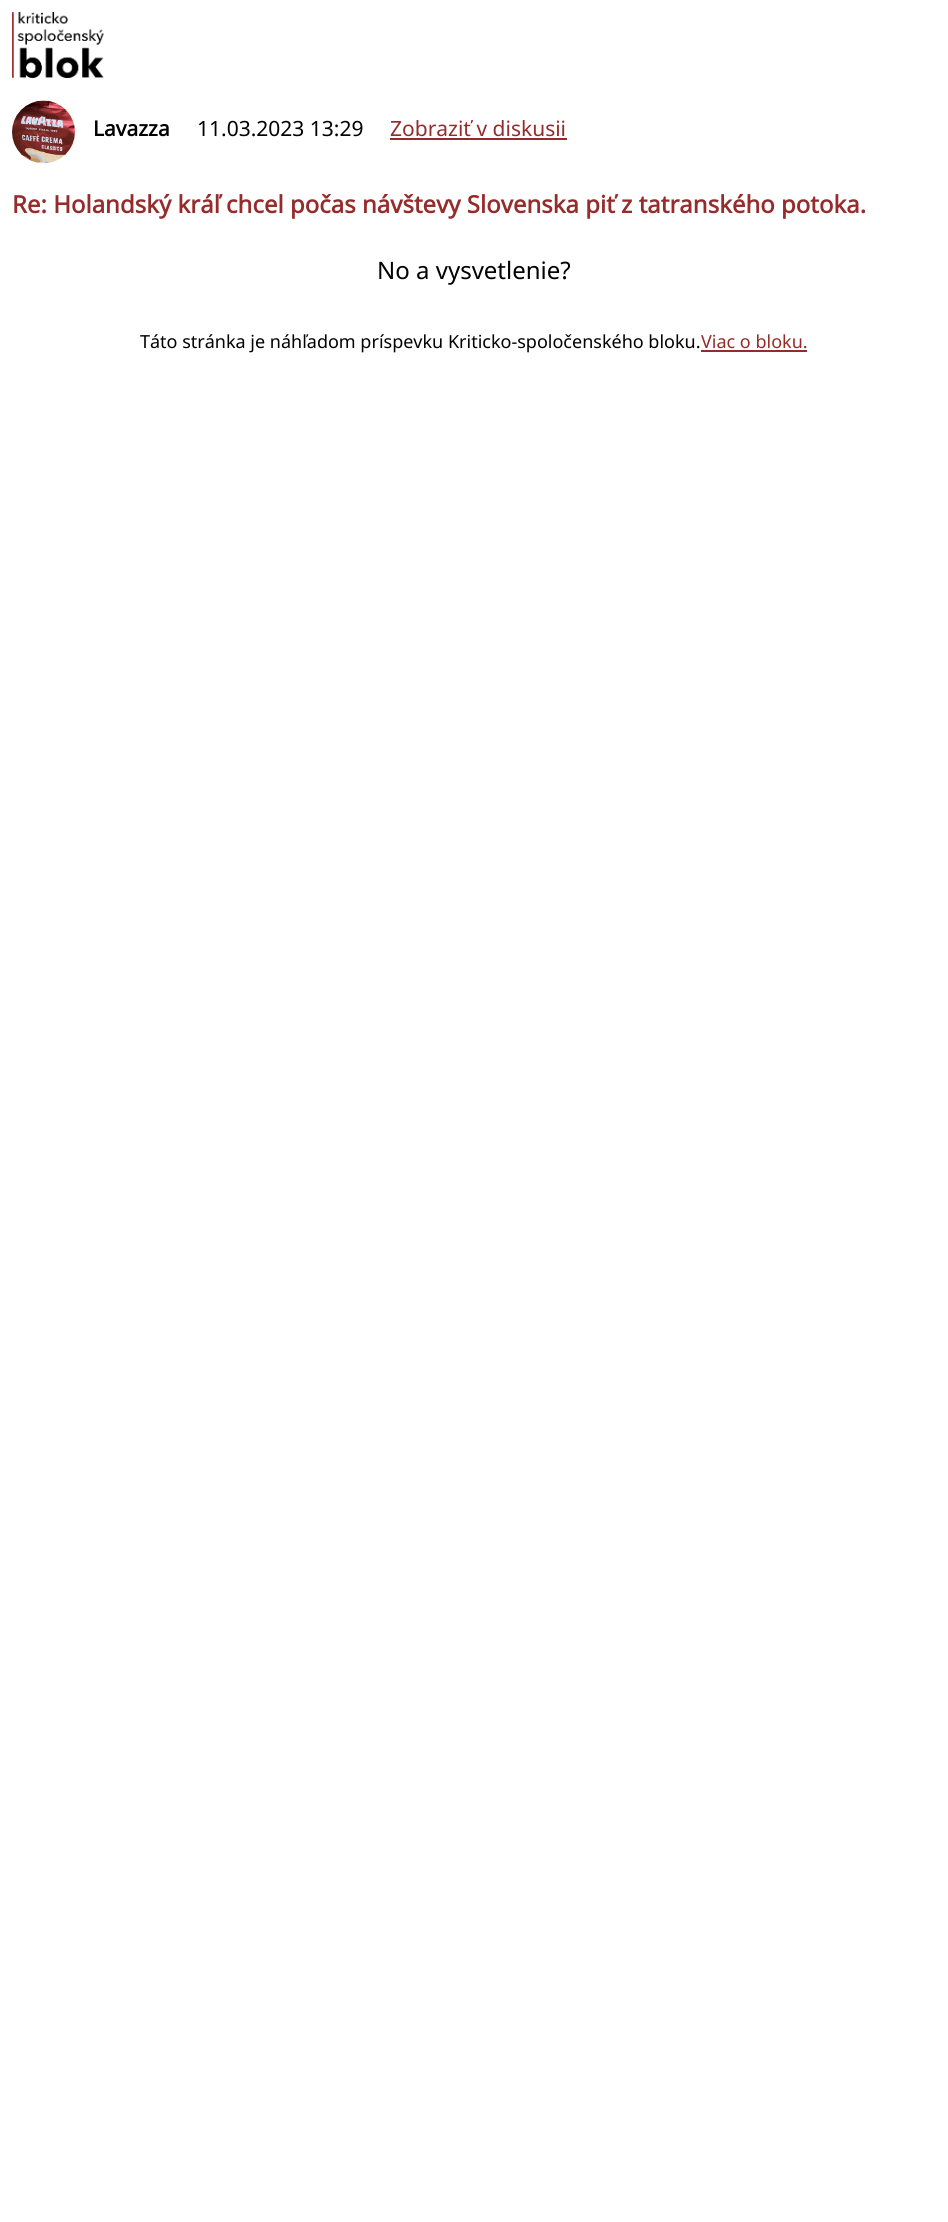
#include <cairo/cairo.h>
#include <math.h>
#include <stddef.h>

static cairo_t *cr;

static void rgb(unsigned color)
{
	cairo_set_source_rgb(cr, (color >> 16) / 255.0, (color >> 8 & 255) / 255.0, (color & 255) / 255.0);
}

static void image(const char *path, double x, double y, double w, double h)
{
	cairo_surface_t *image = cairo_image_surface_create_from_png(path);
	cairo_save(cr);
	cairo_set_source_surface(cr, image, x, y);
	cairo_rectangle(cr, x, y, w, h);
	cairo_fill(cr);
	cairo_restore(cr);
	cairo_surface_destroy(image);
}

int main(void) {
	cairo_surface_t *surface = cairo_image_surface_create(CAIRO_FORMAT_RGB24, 948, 2222);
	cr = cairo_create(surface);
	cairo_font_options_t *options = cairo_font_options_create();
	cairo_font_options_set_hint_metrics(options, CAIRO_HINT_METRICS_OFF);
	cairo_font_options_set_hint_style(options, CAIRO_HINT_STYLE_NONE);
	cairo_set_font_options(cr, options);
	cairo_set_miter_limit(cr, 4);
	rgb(0xffffff);
	cairo_paint(cr);
	image("img/1.png", 12, 12, 92, 66);
	image("img/2.png", 12, 100, 63, 64);
	rgb(0x952c2c);
	cairo_rectangle(cr, 390, 138, 177, 2);
	cairo_fill(cr);
	cairo_rectangle(cr, 701, 350, 106, 2);
	cairo_fill(cr);
	cairo_select_font_face(cr, "Noto Sans", CAIRO_FONT_SLANT_NORMAL, CAIRO_FONT_WEIGHT_BOLD);
	cairo_set_font_size(cr, 21);
	rgb(0x000000);
	cairo_move_to(cr, 93, 136);
	cairo_show_text(cr, "Lavazza");
	cairo_select_font_face(cr, "Noto Sans", CAIRO_FONT_SLANT_NORMAL, CAIRO_FONT_WEIGHT_NORMAL);
	cairo_move_to(cr, 197, 136);
	cairo_show_text(cr, "11.03.2023 13:29");
	rgb(0x952c2c);
	cairo_move_to(cr, 390, 136);
	cairo_show_text(cr, "Zobraziť v diskusii");
	cairo_select_font_face(cr, "Noto Sans", CAIRO_FONT_SLANT_NORMAL, CAIRO_FONT_WEIGHT_BOLD);
	cairo_set_font_size(cr, 24);
	cairo_move_to(cr, 12, 213);
	cairo_show_text(cr, "Re: Holandský kráľ chcel počas návštevy Slovenska piť z tatranského potoka.");
	cairo_select_font_face(cr, "Noto Sans", CAIRO_FONT_SLANT_NORMAL, CAIRO_FONT_WEIGHT_NORMAL);
	rgb(0x000000);
	cairo_move_to(cr, 377, 279);
	cairo_show_text(cr, "No a vysvetlenie?");
	cairo_set_font_size(cr, 18);
	cairo_move_to(cr, 140, 348);
	cairo_show_text(cr, "Táto stránka je náhľadom príspevku Kriticko-spoločenského bloku.");
	rgb(0x952c2c);
	cairo_move_to(cr, 701, 348);
	cairo_show_text(cr, "Viac o bloku.");
	cairo_surface_write_to_png(surface, "page.png");
	cairo_font_options_destroy(options);
	cairo_destroy(cr);
	cairo_surface_destroy(surface);
	return 0;
}
